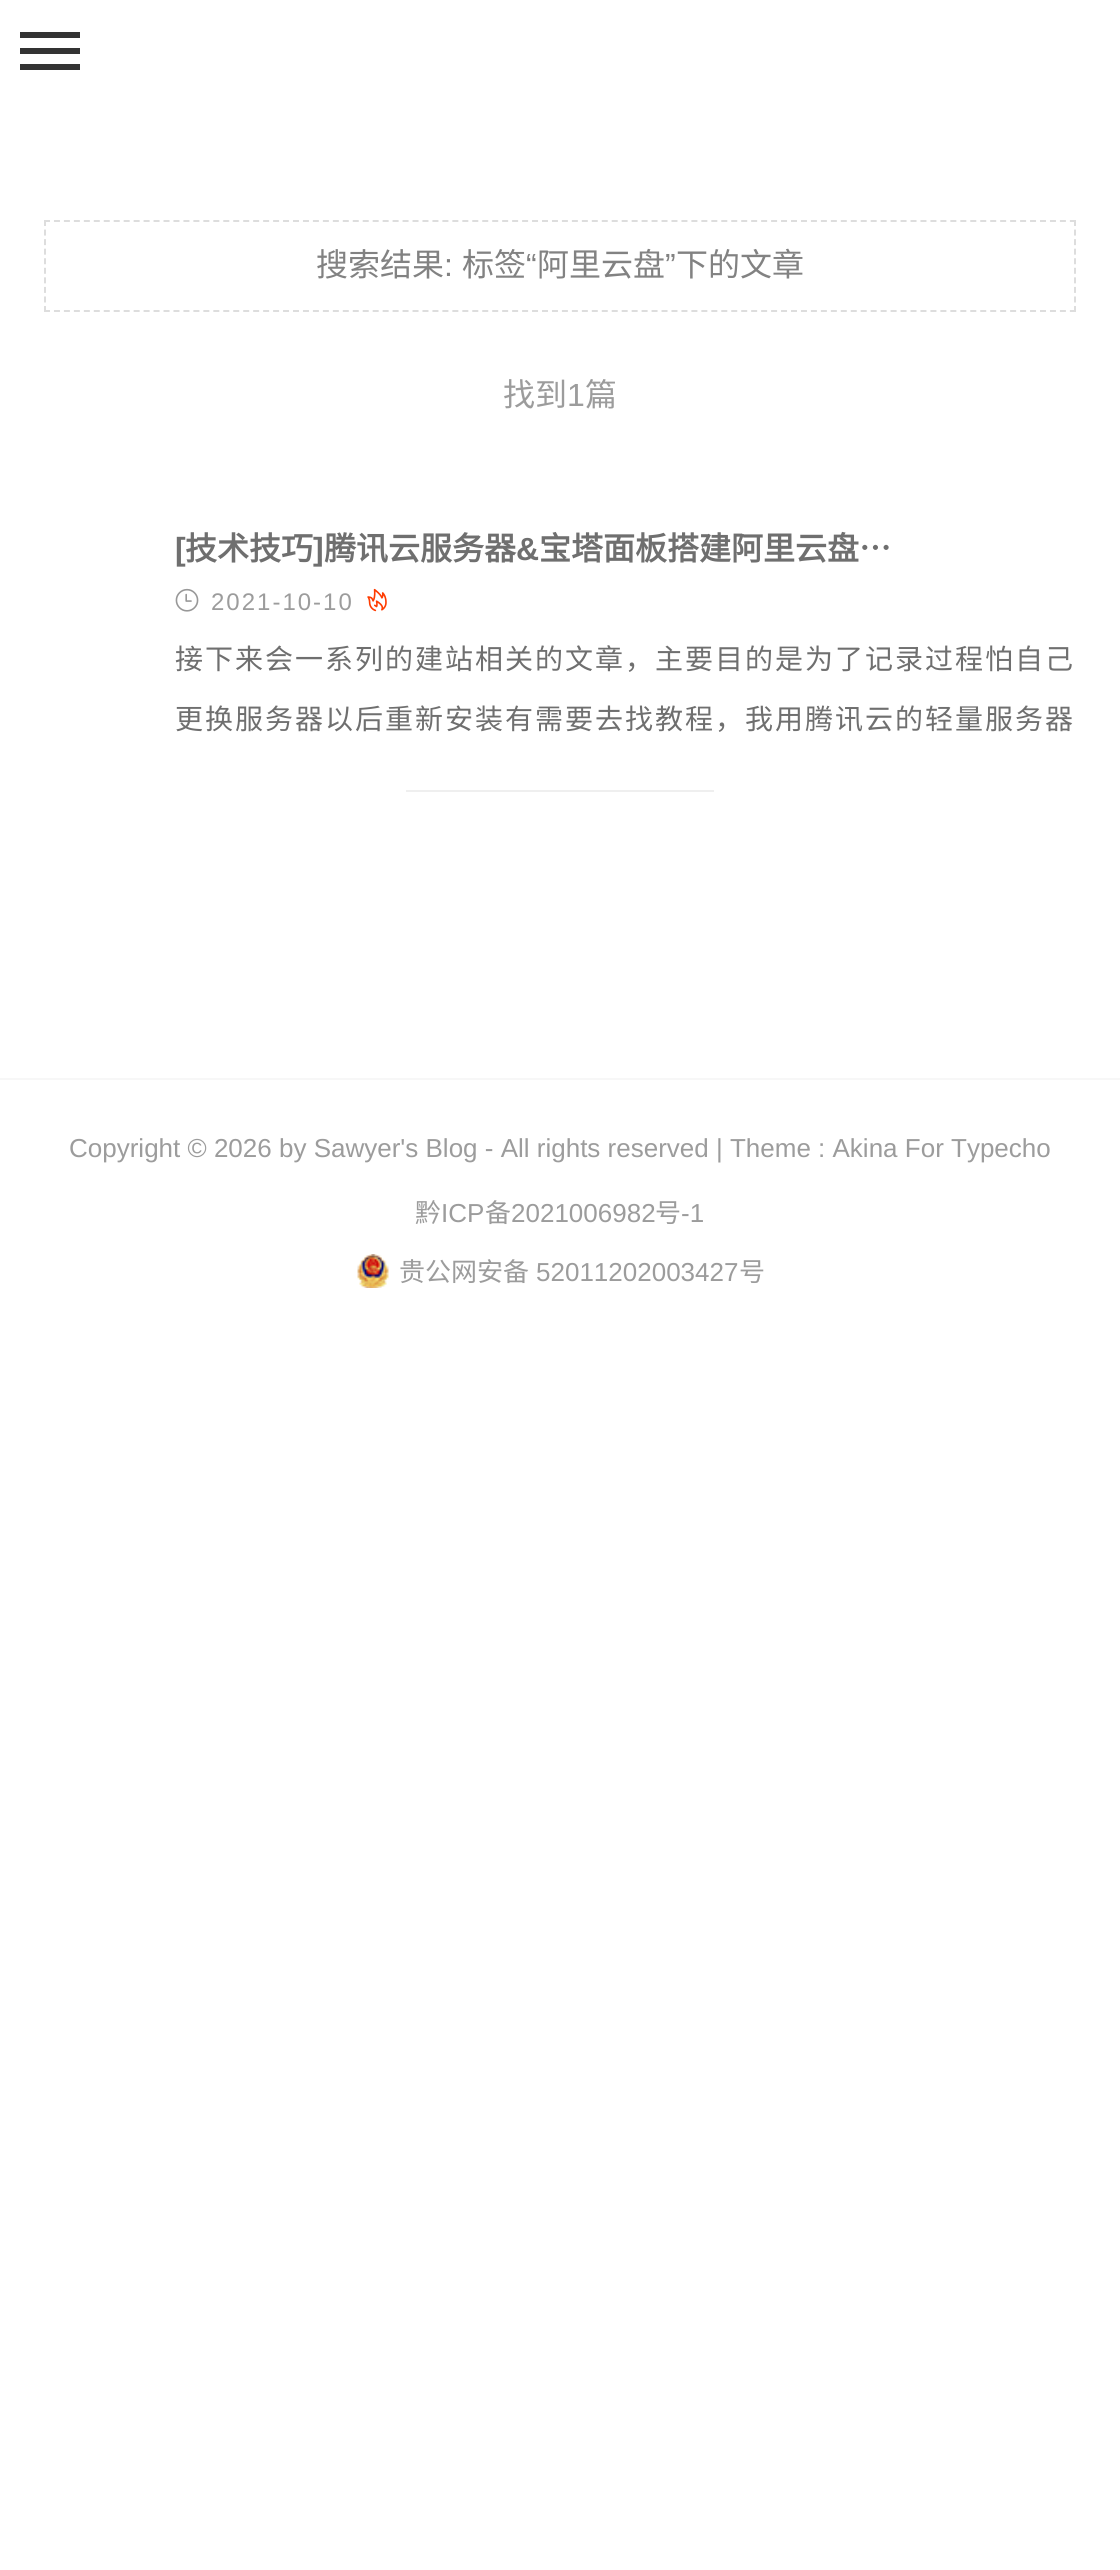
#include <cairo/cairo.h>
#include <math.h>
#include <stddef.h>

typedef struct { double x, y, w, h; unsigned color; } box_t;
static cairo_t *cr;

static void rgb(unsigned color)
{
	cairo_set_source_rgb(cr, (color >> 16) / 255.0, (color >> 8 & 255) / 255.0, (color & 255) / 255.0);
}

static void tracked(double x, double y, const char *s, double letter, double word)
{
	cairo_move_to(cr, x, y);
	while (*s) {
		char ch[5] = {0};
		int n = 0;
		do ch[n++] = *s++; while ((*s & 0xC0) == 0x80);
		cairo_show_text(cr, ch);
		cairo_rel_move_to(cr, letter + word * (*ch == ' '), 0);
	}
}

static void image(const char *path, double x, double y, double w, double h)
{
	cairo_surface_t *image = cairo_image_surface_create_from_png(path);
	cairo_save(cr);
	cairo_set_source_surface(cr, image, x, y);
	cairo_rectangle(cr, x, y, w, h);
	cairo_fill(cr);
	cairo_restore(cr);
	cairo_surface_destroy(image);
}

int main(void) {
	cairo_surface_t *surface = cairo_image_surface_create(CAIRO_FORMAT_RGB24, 1120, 2570);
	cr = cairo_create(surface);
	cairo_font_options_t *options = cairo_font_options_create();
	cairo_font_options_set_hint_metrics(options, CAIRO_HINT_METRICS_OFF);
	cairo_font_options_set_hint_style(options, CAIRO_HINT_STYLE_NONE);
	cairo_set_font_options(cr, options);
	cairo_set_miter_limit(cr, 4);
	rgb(0xffffff);
	cairo_paint(cr);
	{
		static const box_t items[] = {
			{20, 48, 60, 6, 0x333333},
			{20, 32, 60, 6, 0x333333},
			{20, 64, 60, 6, 0x333333},
		};
		for (size_t i = 0; i < sizeof items / sizeof *items; i++) {
			rgb(items[i].color);
			cairo_rectangle(cr, items[i].x, items[i].y, items[i].w, items[i].h);
			cairo_fill(cr);
		}
	}
	cairo_new_path(cr);
	cairo_move_to(cr, 44, 221);
	cairo_line_to(cr, 1076, 221);
	rgb(0xdddddd);
	cairo_set_dash(cr, (double[]){6, 3.96}, 2, 0);
	cairo_stroke(cr);
	cairo_new_path(cr);
	cairo_move_to(cr, 1075, 220);
	cairo_line_to(cr, 1075, 312);
	cairo_set_dash(cr, (double[]){6, 3.56}, 2, 0);
	cairo_stroke(cr);
	cairo_new_path(cr);
	cairo_move_to(cr, 44, 311);
	cairo_line_to(cr, 1076, 311);
	cairo_set_dash(cr, (double[]){6, 3.96}, 2, 0);
	cairo_stroke(cr);
	cairo_new_path(cr);
	cairo_move_to(cr, 45, 220);
	cairo_line_to(cr, 45, 312);
	cairo_set_dash(cr, (double[]){6, 3.56}, 2, 0);
	cairo_stroke(cr);
	image("img/1.png", 175, 588, 24, 24);
	image("img/2.png", 367, 588, 20, 24);
	rgb(0xefefef);
	cairo_rectangle(cr, 406, 790, 308, 2);
	cairo_fill(cr);
	rgb(0xf7f7f7);
	cairo_rectangle(cr, 0, 1078, 1120, 2);
	cairo_fill(cr);
	image("img/3.png", 357, 1254, 32, 34);
	cairo_select_font_face(cr, "Noto Sans CJK SC", CAIRO_FONT_SLANT_NORMAL, CAIRO_FONT_WEIGHT_NORMAL);
	cairo_set_font_size(cr, 32);
	rgb(0x828282);
	cairo_move_to(cr, 316, 276);
	cairo_show_text(cr, "搜索结果");
	cairo_move_to(cr, 462, 276);
	cairo_show_text(cr, "标签");
	cairo_select_font_face(cr, "Liberation Sans", CAIRO_FONT_SLANT_NORMAL, CAIRO_FONT_WEIGHT_NORMAL);
	cairo_move_to(cr, 526, 276);
	cairo_show_text(cr, "“");
	cairo_select_font_face(cr, "Noto Sans CJK SC", CAIRO_FONT_SLANT_NORMAL, CAIRO_FONT_WEIGHT_NORMAL);
	cairo_move_to(cr, 537, 276);
	cairo_show_text(cr, "阿里云盘");
	cairo_select_font_face(cr, "Liberation Sans", CAIRO_FONT_SLANT_NORMAL, CAIRO_FONT_WEIGHT_NORMAL);
	cairo_move_to(cr, 665, 276);
	cairo_show_text(cr, "”");
	cairo_select_font_face(cr, "Noto Sans CJK SC", CAIRO_FONT_SLANT_NORMAL, CAIRO_FONT_WEIGHT_NORMAL);
	cairo_move_to(cr, 676, 276);
	cairo_show_text(cr, "下的文章");
	cairo_select_font_face(cr, "Liberation Sans", CAIRO_FONT_SLANT_NORMAL, CAIRO_FONT_WEIGHT_NORMAL);
	cairo_move_to(cr, 444, 276);
	cairo_show_text(cr, ":");
	cairo_select_font_face(cr, "Noto Sans CJK SC", CAIRO_FONT_SLANT_NORMAL, CAIRO_FONT_WEIGHT_NORMAL);
	rgb(0x9c9c9c);
	cairo_move_to(cr, 503, 406);
	cairo_show_text(cr, "找到");
	cairo_select_font_face(cr, "Liberation Sans", CAIRO_FONT_SLANT_NORMAL, CAIRO_FONT_WEIGHT_NORMAL);
	cairo_move_to(cr, 567, 406);
	cairo_show_text(cr, "1");
	cairo_select_font_face(cr, "Noto Sans CJK SC", CAIRO_FONT_SLANT_NORMAL, CAIRO_FONT_WEIGHT_NORMAL);
	cairo_move_to(cr, 585, 406);
	cairo_show_text(cr, "篇");
	cairo_select_font_face(cr, "Liberation Sans", CAIRO_FONT_SLANT_NORMAL, CAIRO_FONT_WEIGHT_BOLD);
	rgb(0x6f6f6f);
	cairo_move_to(cr, 175, 560);
	cairo_show_text(cr, "[");
	cairo_select_font_face(cr, "Noto Sans CJK SC", CAIRO_FONT_SLANT_NORMAL, CAIRO_FONT_WEIGHT_BOLD);
	cairo_move_to(cr, 185, 560);
	cairo_show_text(cr, "技术技巧");
	cairo_select_font_face(cr, "Liberation Sans", CAIRO_FONT_SLANT_NORMAL, CAIRO_FONT_WEIGHT_BOLD);
	cairo_move_to(cr, 313, 560);
	cairo_show_text(cr, "]");
	cairo_select_font_face(cr, "Noto Sans CJK SC", CAIRO_FONT_SLANT_NORMAL, CAIRO_FONT_WEIGHT_BOLD);
	cairo_move_to(cr, 324, 560);
	cairo_show_text(cr, "腾讯云服务器");
	cairo_select_font_face(cr, "Liberation Sans", CAIRO_FONT_SLANT_NORMAL, CAIRO_FONT_WEIGHT_BOLD);
	cairo_move_to(cr, 516, 560);
	cairo_show_text(cr, "&");
	cairo_select_font_face(cr, "Noto Sans CJK SC", CAIRO_FONT_SLANT_NORMAL, CAIRO_FONT_WEIGHT_BOLD);
	cairo_move_to(cr, 539, 560);
	cairo_show_text(cr, "宝塔面板搭建阿里云盘…");
	cairo_select_font_face(cr, "Liberation Sans", CAIRO_FONT_SLANT_NORMAL, CAIRO_FONT_WEIGHT_NORMAL);
	cairo_set_font_size(cr, 24);
	rgb(0x9c9c9c);
	tracked(211, 610, "2021-10-10", 2, 0);
	cairo_select_font_face(cr, "Noto Sans CJK SC", CAIRO_FONT_SLANT_NORMAL, CAIRO_FONT_WEIGHT_NORMAL);
	cairo_set_font_size(cr, 28);
	rgb(0x6f6f6f);
	tracked(175, 669, "接下来会一系列的建站相关的文章，主要目的是为了记录过程怕自己", 2, 0);
	tracked(175, 729, "更换服务器以后重新安装有需要去找教程，我用腾讯云的轻量服务器", 2, 0);
	cairo_select_font_face(cr, "Liberation Sans", CAIRO_FONT_SLANT_NORMAL, CAIRO_FONT_WEIGHT_NORMAL);
	cairo_set_font_size(cr, 26);
	rgb(0x9c9c9c);
	cairo_move_to(cr, 69, 1157);
	cairo_show_text(cr, "Copyright © 2026 by Sawyer's Blog - All rights reserved | Theme : Akina For Typecho");
	cairo_select_font_face(cr, "Noto Sans CJK SC", CAIRO_FONT_SLANT_NORMAL, CAIRO_FONT_WEIGHT_NORMAL);
	cairo_move_to(cr, 415, 1222);
	cairo_show_text(cr, "黔");
	cairo_select_font_face(cr, "Liberation Sans", CAIRO_FONT_SLANT_NORMAL, CAIRO_FONT_WEIGHT_NORMAL);
	cairo_move_to(cr, 441, 1222);
	cairo_show_text(cr, "ICP");
	cairo_select_font_face(cr, "Noto Sans CJK SC", CAIRO_FONT_SLANT_NORMAL, CAIRO_FONT_WEIGHT_NORMAL);
	cairo_move_to(cr, 485, 1222);
	cairo_show_text(cr, "备");
	cairo_select_font_face(cr, "Liberation Sans", CAIRO_FONT_SLANT_NORMAL, CAIRO_FONT_WEIGHT_NORMAL);
	cairo_move_to(cr, 511, 1222);
	cairo_show_text(cr, "2021006982");
	cairo_select_font_face(cr, "Noto Sans CJK SC", CAIRO_FONT_SLANT_NORMAL, CAIRO_FONT_WEIGHT_NORMAL);
	cairo_move_to(cr, 655, 1222);
	cairo_show_text(cr, "号");
	cairo_select_font_face(cr, "Liberation Sans", CAIRO_FONT_SLANT_NORMAL, CAIRO_FONT_WEIGHT_NORMAL);
	cairo_move_to(cr, 681, 1222);
	cairo_show_text(cr, "-1");
	cairo_select_font_face(cr, "Noto Sans CJK SC", CAIRO_FONT_SLANT_NORMAL, CAIRO_FONT_WEIGHT_NORMAL);
	cairo_move_to(cr, 399, 1281);
	cairo_show_text(cr, "贵公网安备");
	cairo_select_font_face(cr, "Liberation Sans", CAIRO_FONT_SLANT_NORMAL, CAIRO_FONT_WEIGHT_NORMAL);
	cairo_move_to(cr, 536, 1281);
	cairo_show_text(cr, "52011202003427");
	cairo_select_font_face(cr, "Noto Sans CJK SC", CAIRO_FONT_SLANT_NORMAL, CAIRO_FONT_WEIGHT_NORMAL);
	cairo_move_to(cr, 739, 1281);
	cairo_show_text(cr, "号");
	cairo_surface_write_to_png(surface, "page.png");
	cairo_font_options_destroy(options);
	cairo_destroy(cr);
	cairo_surface_destroy(surface);
	return 0;
}
